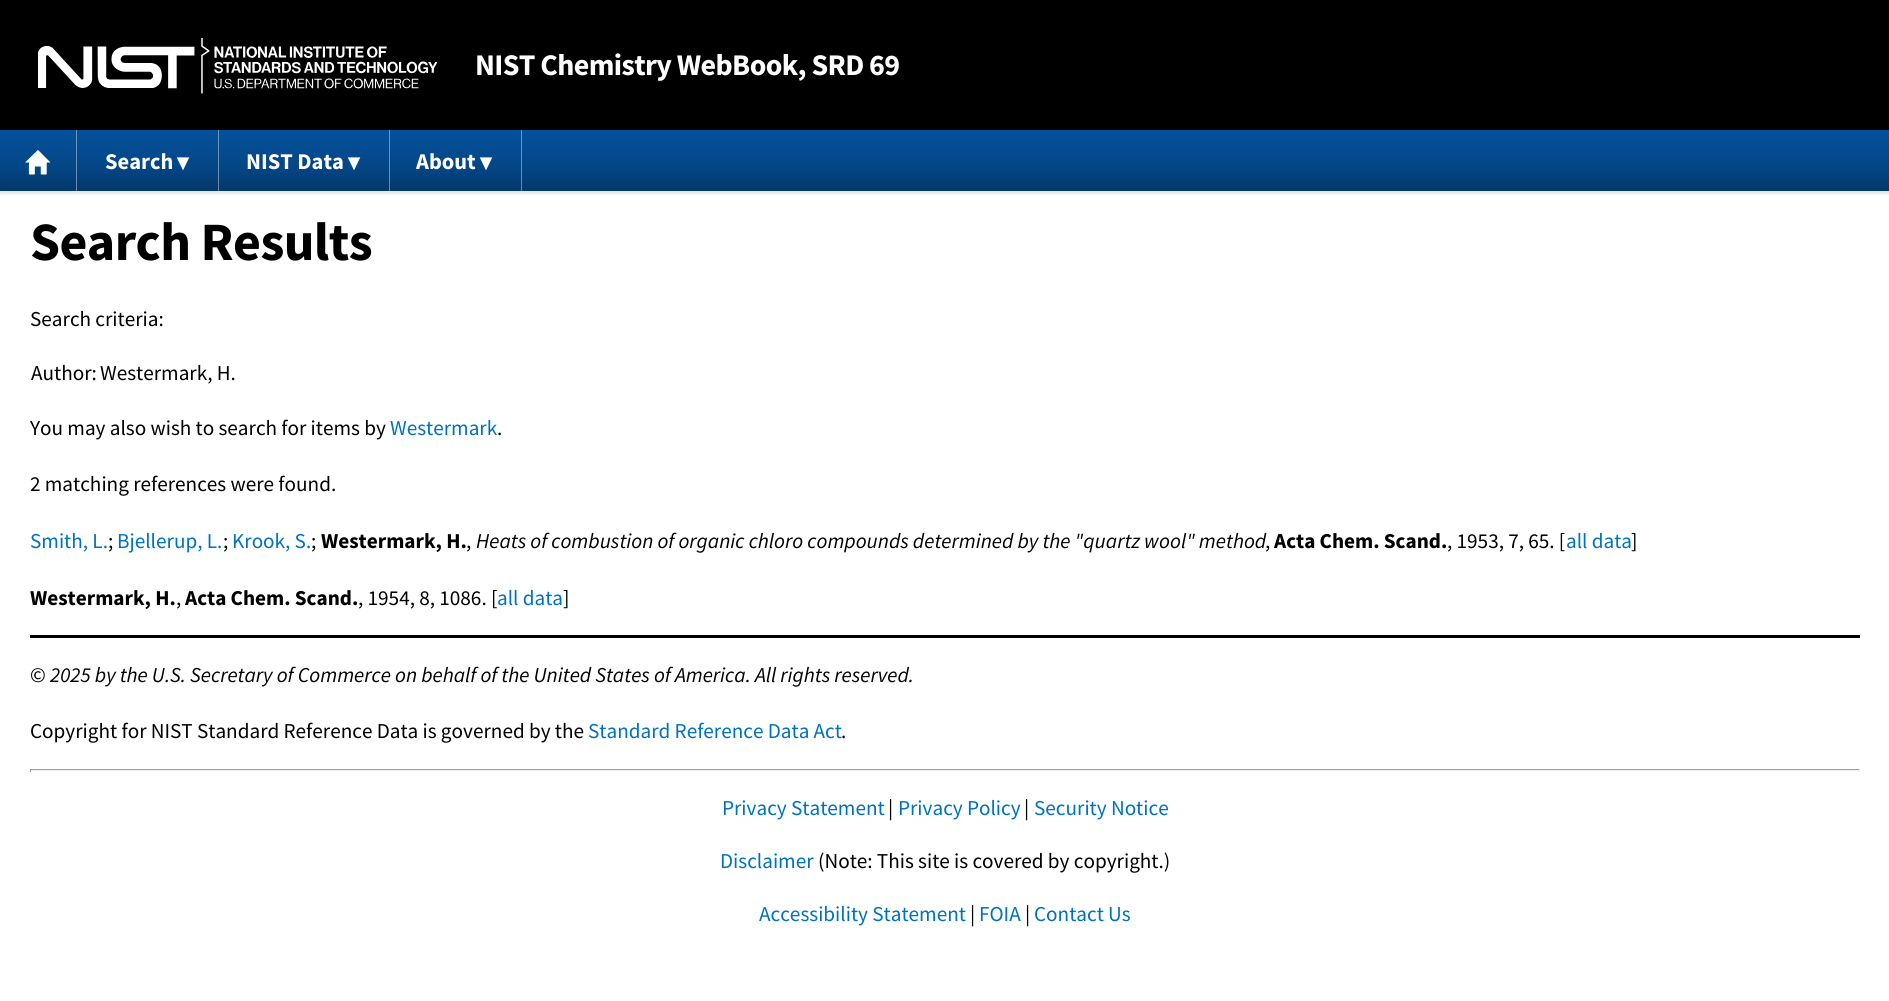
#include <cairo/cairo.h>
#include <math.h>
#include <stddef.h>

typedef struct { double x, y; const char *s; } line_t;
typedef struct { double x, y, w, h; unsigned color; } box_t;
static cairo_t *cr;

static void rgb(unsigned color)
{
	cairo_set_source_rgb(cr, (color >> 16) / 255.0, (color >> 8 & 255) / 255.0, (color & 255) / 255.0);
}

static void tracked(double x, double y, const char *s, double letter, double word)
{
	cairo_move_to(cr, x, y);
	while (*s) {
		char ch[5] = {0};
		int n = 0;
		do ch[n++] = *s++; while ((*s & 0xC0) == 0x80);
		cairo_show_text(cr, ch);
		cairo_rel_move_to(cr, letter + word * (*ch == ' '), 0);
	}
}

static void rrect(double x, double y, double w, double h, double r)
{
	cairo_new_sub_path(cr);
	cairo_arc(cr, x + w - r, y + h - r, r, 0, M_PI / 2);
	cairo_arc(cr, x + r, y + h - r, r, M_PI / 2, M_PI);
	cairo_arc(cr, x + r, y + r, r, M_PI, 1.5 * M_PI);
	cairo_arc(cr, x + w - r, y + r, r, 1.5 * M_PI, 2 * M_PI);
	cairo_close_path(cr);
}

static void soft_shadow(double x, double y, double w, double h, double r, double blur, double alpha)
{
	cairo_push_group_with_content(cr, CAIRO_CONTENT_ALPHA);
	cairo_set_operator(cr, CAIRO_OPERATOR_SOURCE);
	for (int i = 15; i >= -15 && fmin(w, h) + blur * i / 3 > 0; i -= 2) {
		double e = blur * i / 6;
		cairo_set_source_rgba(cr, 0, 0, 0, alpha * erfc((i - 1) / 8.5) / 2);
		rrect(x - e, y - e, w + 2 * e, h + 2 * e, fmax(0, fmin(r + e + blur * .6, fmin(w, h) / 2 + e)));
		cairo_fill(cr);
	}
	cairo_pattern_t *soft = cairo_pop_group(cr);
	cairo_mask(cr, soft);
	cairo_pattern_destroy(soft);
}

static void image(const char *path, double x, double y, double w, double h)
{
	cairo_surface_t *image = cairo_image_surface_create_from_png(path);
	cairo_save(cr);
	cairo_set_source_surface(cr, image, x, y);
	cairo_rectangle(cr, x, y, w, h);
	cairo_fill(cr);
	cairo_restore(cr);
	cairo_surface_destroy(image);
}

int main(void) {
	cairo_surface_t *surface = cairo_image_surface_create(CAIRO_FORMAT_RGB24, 1889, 1001);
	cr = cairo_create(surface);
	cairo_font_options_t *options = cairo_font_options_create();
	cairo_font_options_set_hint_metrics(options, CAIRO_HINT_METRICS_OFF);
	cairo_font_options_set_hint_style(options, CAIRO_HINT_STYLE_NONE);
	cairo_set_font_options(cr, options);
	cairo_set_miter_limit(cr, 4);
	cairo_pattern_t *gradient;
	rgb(0xffffff);
	cairo_paint(cr);
	rgb(0x000000);
	soft_shadow(0, 133, 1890, 61, 0, 1, 0.1);
	rgb(0x000000);
	cairo_rectangle(cr, 0, 0, 1889, 130);
	cairo_fill(cr);
	image("img/1.png", 38, 38, 400, 56);
	gradient = cairo_pattern_create_linear(945, 130, 945, 191);
	cairo_pattern_add_color_stop_rgba(gradient, 0, 0.016, 0.318, 0.608, 1);
	cairo_pattern_add_color_stop_rgba(gradient, 0.6, 0.016, 0.275, 0.529, 1);
	cairo_pattern_add_color_stop_rgba(gradient, 1, 0.012, 0.216, 0.412, 1);
	cairo_set_source(cr, gradient);
	cairo_pattern_destroy(gradient);
	cairo_rectangle(cr, 0, 130, 1889, 61);
	cairo_fill(cr);
	gradient = cairo_pattern_create_linear(945, 130, 945, 191);
	cairo_pattern_add_color_stop_rgba(gradient, 0, 0.408, 0.592, 0.765, 1);
	cairo_pattern_add_color_stop_rgba(gradient, 0.6, 0.408, 0.565, 0.718, 1);
	cairo_pattern_add_color_stop_rgba(gradient, 1, 0.408, 0.529, 0.647, 1);
	cairo_set_source(cr, gradient);
	cairo_pattern_destroy(gradient);
	cairo_rectangle(cr, 521, 130, 1, 61);
	cairo_fill(cr);
	cairo_rectangle(cr, 389, 130, 1, 61);
	cairo_fill(cr);
	cairo_rectangle(cr, 218, 130, 1, 61);
	cairo_fill(cr);
	cairo_rectangle(cr, 76, 130, 1, 61);
	cairo_fill(cr);
	image("img/2.png", 25, 150, 26, 25);
	{
		static const box_t items[] = {
			{30, 635, 1830, 3, 0x000000},
			{30, 769, 1830, 1, 0x9f9f9f},
			{1859, 769, 1, 3, 0xeeeeee},
			{30, 770, 1830, 1, 0xeeeeee},
			{30, 769, 1, 3, 0x9f9f9f},
		};
		for (size_t i = 0; i < sizeof items / sizeof *items; i++) {
			rgb(items[i].color);
			cairo_rectangle(cr, items[i].x, items[i].y, items[i].w, items[i].h);
			cairo_fill(cr);
		}
	}
	cairo_select_font_face(cr, "Source Sans Pro", CAIRO_FONT_SLANT_NORMAL, CAIRO_FONT_WEIGHT_BOLD);
	cairo_set_font_size(cr, 30);
	rgb(0xffffff);
	tracked(475, 75, "NIST Chemistry WebBook, SRD 69", -0.6, 0);
	cairo_set_font_size(cr, 22.5);
	cairo_move_to(cr, 105, 169);
	cairo_show_text(cr, "Search");
	cairo_set_font_size(cr, 16);
	cairo_move_to(cr, 176, 169);
	cairo_show_text(cr, "▼");
	cairo_set_font_size(cr, 22.5);
	cairo_move_to(cr, 246, 169);
	cairo_show_text(cr, "NIST Data");
	cairo_set_font_size(cr, 16);
	cairo_move_to(cr, 347, 169);
	cairo_show_text(cr, "▼");
	cairo_set_font_size(cr, 22.5);
	cairo_move_to(cr, 416, 169);
	cairo_show_text(cr, "About");
	cairo_set_font_size(cr, 16);
	cairo_move_to(cr, 479, 169);
	cairo_show_text(cr, "▼");
	cairo_set_font_size(cr, 54);
	rgb(0x000000);
	tracked(30, 260, "Search Results", -0.6, 0);
	cairo_select_font_face(cr, "Source Sans Pro", CAIRO_FONT_SLANT_NORMAL, CAIRO_FONT_WEIGHT_NORMAL);
	cairo_set_font_size(cr, 21.2);
	{
		static const line_t items[] = {
			{30, 326, "Search criteria:"},
			{31, 380, "Author:"},
			{100, 380, "Westermark, H."},
			{30, 435, "You may also wish to search for items by"},
		};
		for (size_t i = 0; i < sizeof items / sizeof *items; i++) {
			cairo_move_to(cr, items[i].x, items[i].y);
			cairo_show_text(cr, items[i].s);
		}
	}
	rgb(0x0071bc);
	cairo_move_to(cr, 390, 435);
	cairo_show_text(cr, "Westermark");
	rgb(0x000000);
	cairo_move_to(cr, 497, 435);
	cairo_show_text(cr, ".");
	cairo_move_to(cr, 30, 491);
	cairo_show_text(cr, "2 matching references were found.");
	rgb(0x0071bc);
	cairo_move_to(cr, 30, 548);
	cairo_show_text(cr, "Smith, L.");
	rgb(0x000000);
	cairo_move_to(cr, 108, 548);
	cairo_show_text(cr, ";");
	rgb(0x0071bc);
	cairo_move_to(cr, 117, 548);
	cairo_show_text(cr, "Bjellerup, L.");
	rgb(0x000000);
	cairo_move_to(cr, 223, 548);
	cairo_show_text(cr, ";");
	rgb(0x0071bc);
	cairo_move_to(cr, 232, 548);
	cairo_show_text(cr, "Krook, S.");
	rgb(0x000000);
	cairo_move_to(cr, 311, 548);
	cairo_show_text(cr, ";");
	cairo_select_font_face(cr, "Source Sans Pro", CAIRO_FONT_SLANT_NORMAL, CAIRO_FONT_WEIGHT_BOLD);
	cairo_move_to(cr, 321, 548);
	cairo_show_text(cr, "Westermark, H.");
	cairo_select_font_face(cr, "Source Sans Pro", CAIRO_FONT_SLANT_NORMAL, CAIRO_FONT_WEIGHT_NORMAL);
	cairo_move_to(cr, 466, 548);
	cairo_show_text(cr, ",");
	cairo_select_font_face(cr, "Source Sans Pro", CAIRO_FONT_SLANT_ITALIC, CAIRO_FONT_WEIGHT_NORMAL);
	cairo_move_to(cr, 476, 548);
	cairo_show_text(cr, "Heats of combustion of organic chloro compounds determined by the \"quartz wool\" method");
	cairo_select_font_face(cr, "Source Sans Pro", CAIRO_FONT_SLANT_NORMAL, CAIRO_FONT_WEIGHT_NORMAL);
	cairo_move_to(cr, 1265, 548);
	cairo_show_text(cr, ",");
	cairo_select_font_face(cr, "Source Sans Pro", CAIRO_FONT_SLANT_NORMAL, CAIRO_FONT_WEIGHT_BOLD);
	cairo_move_to(cr, 1274, 548);
	cairo_show_text(cr, "Acta Chem. Scand.");
	cairo_select_font_face(cr, "Source Sans Pro", CAIRO_FONT_SLANT_NORMAL, CAIRO_FONT_WEIGHT_NORMAL);
	cairo_move_to(cr, 1447, 548);
	cairo_show_text(cr, ", 1953, 7, 65. [");
	rgb(0x0071bc);
	cairo_move_to(cr, 1566, 548);
	cairo_show_text(cr, "all data");
	rgb(0x000000);
	cairo_move_to(cr, 1631, 548);
	cairo_show_text(cr, "]");
	cairo_select_font_face(cr, "Source Sans Pro", CAIRO_FONT_SLANT_NORMAL, CAIRO_FONT_WEIGHT_BOLD);
	cairo_move_to(cr, 30, 605);
	cairo_show_text(cr, "Westermark, H.");
	cairo_select_font_face(cr, "Source Sans Pro", CAIRO_FONT_SLANT_NORMAL, CAIRO_FONT_WEIGHT_NORMAL);
	cairo_move_to(cr, 176, 605);
	cairo_show_text(cr, ",");
	cairo_select_font_face(cr, "Source Sans Pro", CAIRO_FONT_SLANT_NORMAL, CAIRO_FONT_WEIGHT_BOLD);
	cairo_move_to(cr, 185, 605);
	cairo_show_text(cr, "Acta Chem. Scand.");
	cairo_select_font_face(cr, "Source Sans Pro", CAIRO_FONT_SLANT_NORMAL, CAIRO_FONT_WEIGHT_NORMAL);
	cairo_move_to(cr, 358, 605);
	cairo_show_text(cr, ", 1954, 8, 1086. [");
	rgb(0x0071bc);
	cairo_move_to(cr, 497, 605);
	cairo_show_text(cr, "all data");
	rgb(0x000000);
	cairo_move_to(cr, 563, 605);
	cairo_show_text(cr, "]");
	cairo_move_to(cr, 30, 682);
	cairo_show_text(cr, "©");
	cairo_select_font_face(cr, "Source Sans Pro", CAIRO_FONT_SLANT_ITALIC, CAIRO_FONT_WEIGHT_NORMAL);
	cairo_move_to(cr, 50, 682);
	cairo_show_text(cr, "2025 by the U.S. Secretary of Commerce on behalf of the United States of America. All rights reserved.");
	cairo_select_font_face(cr, "Source Sans Pro", CAIRO_FONT_SLANT_NORMAL, CAIRO_FONT_WEIGHT_NORMAL);
	cairo_move_to(cr, 30, 738);
	cairo_show_text(cr, "Copyright for NIST Standard Reference Data is governed by the");
	rgb(0x0071bc);
	cairo_move_to(cr, 588, 738);
	cairo_show_text(cr, "Standard Reference Data Act");
	rgb(0x000000);
	cairo_move_to(cr, 841, 738);
	cairo_show_text(cr, ".");
	rgb(0x0071bc);
	cairo_move_to(cr, 722, 815);
	cairo_show_text(cr, "Privacy Statement");
	rgb(0x000000);
	cairo_move_to(cr, 888, 815);
	cairo_show_text(cr, "|");
	rgb(0x0071bc);
	cairo_move_to(cr, 898, 815);
	cairo_show_text(cr, "Privacy Policy");
	rgb(0x000000);
	cairo_move_to(cr, 1024, 815);
	cairo_show_text(cr, "|");
	rgb(0x0071bc);
	cairo_move_to(cr, 1034, 815);
	cairo_show_text(cr, "Security Notice");
	cairo_move_to(cr, 720, 868);
	cairo_show_text(cr, "Disclaimer");
	rgb(0x000000);
	cairo_move_to(cr, 818, 868);
	cairo_show_text(cr, "(Note: This site is covered by copyright.)");
	rgb(0x0071bc);
	cairo_move_to(cr, 759, 921);
	cairo_show_text(cr, "Accessibility Statement");
	rgb(0x000000);
	cairo_move_to(cr, 970, 921);
	cairo_show_text(cr, "|");
	rgb(0x0071bc);
	cairo_move_to(cr, 979, 921);
	cairo_show_text(cr, "FOIA");
	rgb(0x000000);
	cairo_move_to(cr, 1025, 921);
	cairo_show_text(cr, "|");
	rgb(0x0071bc);
	cairo_move_to(cr, 1034, 921);
	cairo_show_text(cr, "Contact Us");
	cairo_surface_write_to_png(surface, "page.png");
	cairo_font_options_destroy(options);
	cairo_destroy(cr);
	cairo_surface_destroy(surface);
	return 0;
}
